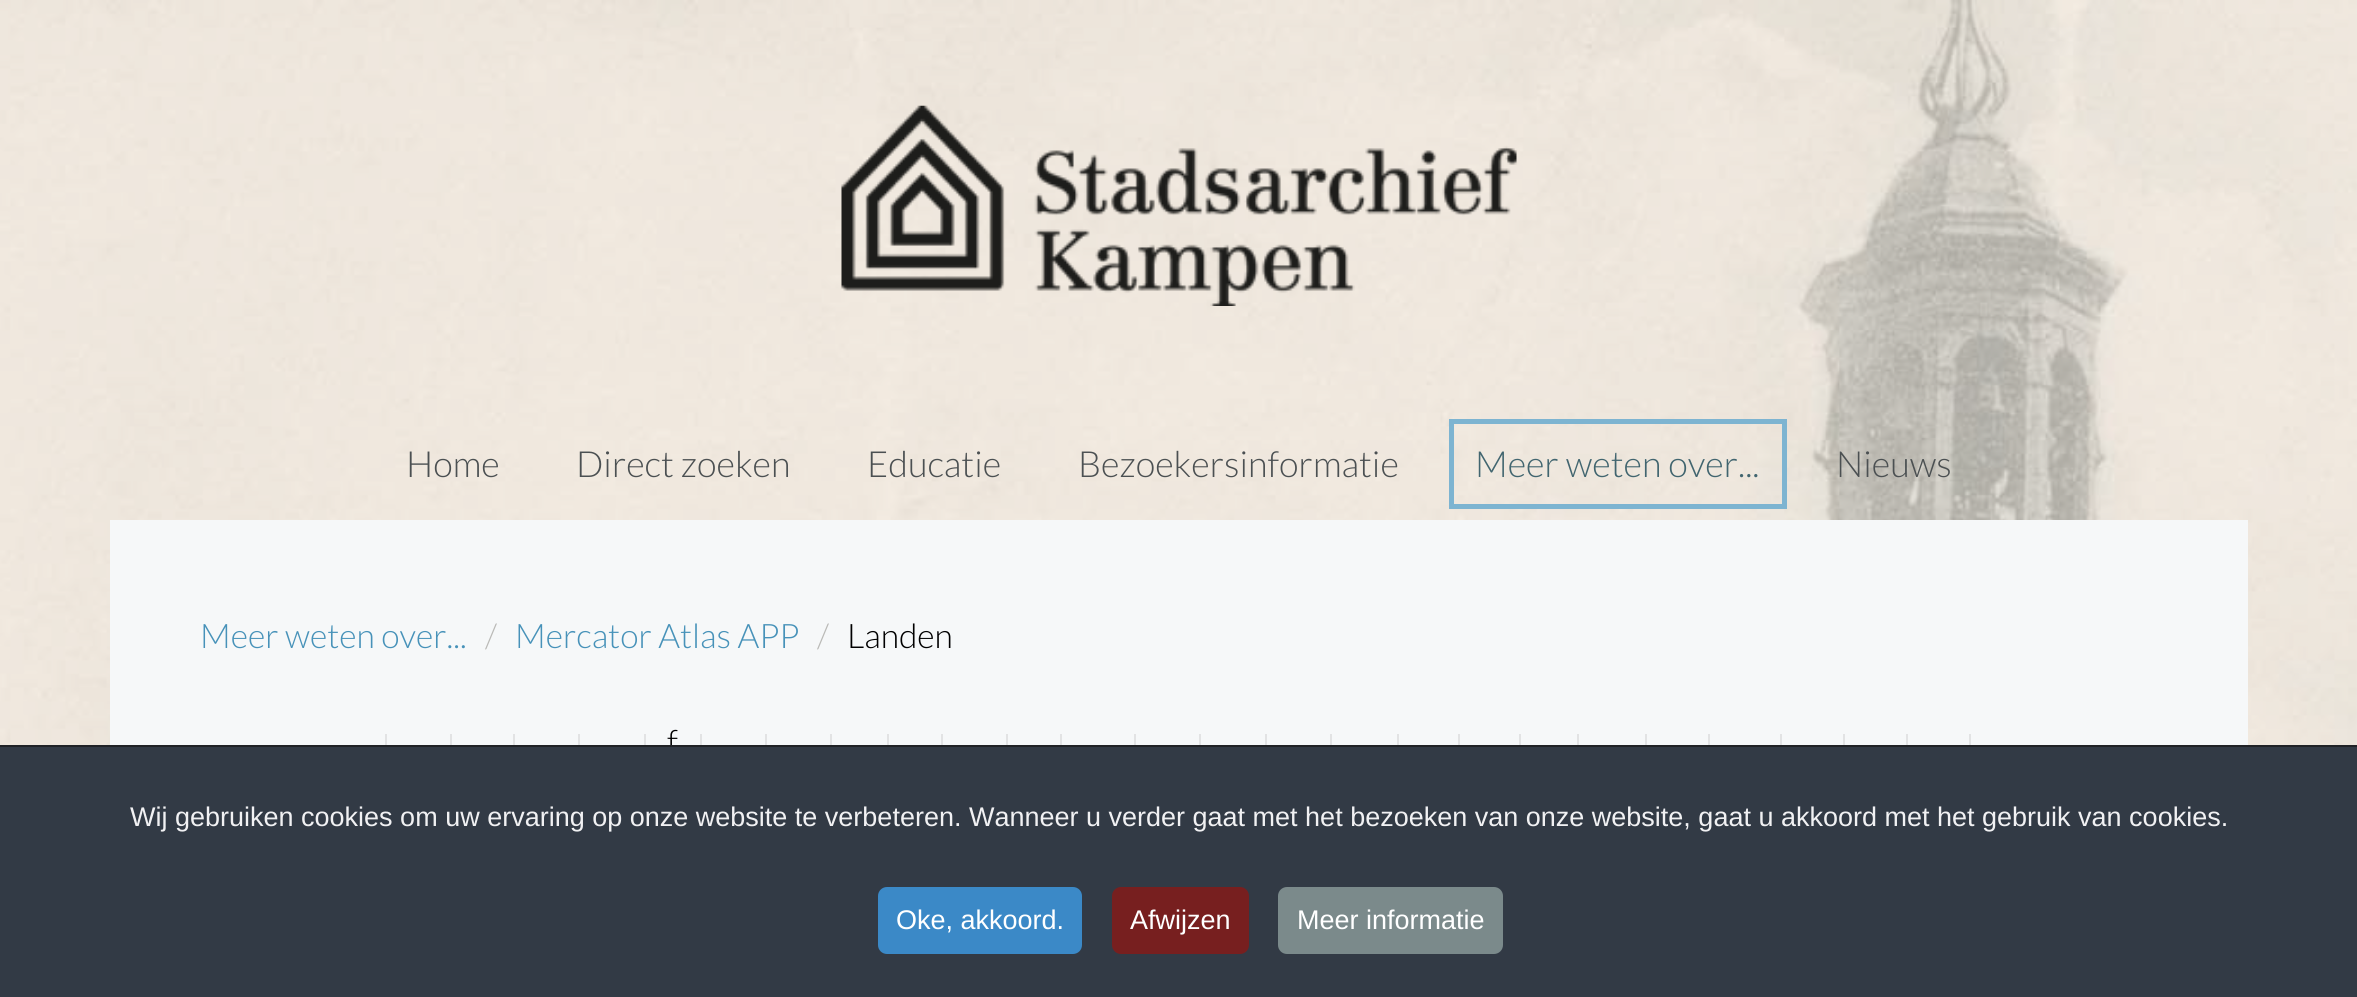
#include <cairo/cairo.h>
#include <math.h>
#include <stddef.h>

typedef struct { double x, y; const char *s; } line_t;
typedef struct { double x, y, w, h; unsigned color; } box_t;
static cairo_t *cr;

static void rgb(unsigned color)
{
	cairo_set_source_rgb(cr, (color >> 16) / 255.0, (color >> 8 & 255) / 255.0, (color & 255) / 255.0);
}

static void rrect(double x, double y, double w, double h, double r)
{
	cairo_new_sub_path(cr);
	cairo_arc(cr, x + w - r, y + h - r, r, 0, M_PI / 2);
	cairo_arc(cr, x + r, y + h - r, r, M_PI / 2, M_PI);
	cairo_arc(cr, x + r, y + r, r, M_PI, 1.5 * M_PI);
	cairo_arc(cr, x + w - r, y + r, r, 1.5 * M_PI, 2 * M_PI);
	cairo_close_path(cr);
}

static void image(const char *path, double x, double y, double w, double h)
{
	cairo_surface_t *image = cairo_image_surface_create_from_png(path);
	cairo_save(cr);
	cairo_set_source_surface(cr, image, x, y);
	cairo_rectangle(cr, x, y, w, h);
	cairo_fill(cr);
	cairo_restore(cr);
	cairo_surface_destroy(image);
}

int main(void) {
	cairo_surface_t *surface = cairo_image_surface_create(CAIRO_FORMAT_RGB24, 2357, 997);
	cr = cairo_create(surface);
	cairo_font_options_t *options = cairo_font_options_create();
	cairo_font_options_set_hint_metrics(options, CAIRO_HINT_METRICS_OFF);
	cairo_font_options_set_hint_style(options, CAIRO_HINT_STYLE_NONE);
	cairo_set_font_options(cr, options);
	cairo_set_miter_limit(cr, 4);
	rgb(0xf6f2ea);
	cairo_paint(cr);
	image("img/1.png", 0, 0, 2357, 745);
	image("img/2.png", 841, 105, 676, 201);
	cairo_rectangle(cr, 1451.5, 421.5, 333, 85);
	rgb(0x7db4d1);
	cairo_set_line_width(cr, 5);
	cairo_stroke(cr);
	{
		static const box_t items[] = {
			{110, 520, 2138, 225, 0xf6f8f9},
			{385, 734, 2, 11, 0xe2e3e4},
			{450, 734, 2, 11, 0xe2e3e4},
			{513, 734, 2, 11, 0xe2e3e4},
			{578, 734, 2, 11, 0xe2e3e4},
			{644, 734, 2, 11, 0xe2e3e4},
			{700, 734, 2, 11, 0xe2e3e4},
			{765, 734, 2, 11, 0xe2e3e4},
			{830, 734, 2, 11, 0xe2e3e4},
			{887, 734, 2, 11, 0xe2e3e4},
			{941, 734, 2, 11, 0xe2e3e4},
			{1006, 734, 2, 11, 0xe2e3e4},
			{1060, 734, 2, 11, 0xe2e3e4},
			{1134, 734, 2, 11, 0xe2e3e4},
			{1199, 734, 2, 11, 0xe2e3e4},
			{1265, 734, 2, 11, 0xe2e3e4},
			{1330, 734, 2, 11, 0xe2e3e4},
			{1397, 734, 2, 11, 0xe2e3e4},
			{1458, 734, 2, 11, 0xe2e3e4},
			{1519, 734, 2, 11, 0xe2e3e4},
			{1577, 734, 2, 11, 0xe2e3e4},
			{1645, 734, 2, 11, 0xe2e3e4},
			{1708, 734, 2, 11, 0xe2e3e4},
			{1780, 734, 2, 11, 0xe2e3e4},
			{1843, 734, 2, 11, 0xe2e3e4},
			{1906, 734, 2, 11, 0xe2e3e4},
			{1969, 734, 2, 11, 0xe2e3e4},
		};
		for (size_t i = 0; i < sizeof items / sizeof *items; i++) {
			rgb(items[i].color);
			cairo_rectangle(cr, items[i].x, items[i].y, items[i].w, items[i].h);
			cairo_fill(cr);
		}
	}
	cairo_select_font_face(cr, "Lato Light", CAIRO_FONT_SLANT_NORMAL, CAIRO_FONT_WEIGHT_NORMAL);
	cairo_set_font_size(cr, 36);
	rgb(0x4b5052);
	{
		static const line_t items[] = {
			{406, 477, "Home"},
			{576, 477, "Direct zoeken"},
			{867, 477, "Educatie"},
			{1078, 477, "Bezoekersinformatie"},
		};
		for (size_t i = 0; i < sizeof items / sizeof *items; i++) {
			cairo_move_to(cr, items[i].x, items[i].y);
			cairo_show_text(cr, items[i].s);
		}
	}
	rgb(0x41656f);
	cairo_move_to(cr, 1475, 477);
	cairo_show_text(cr, "Meer weten over...");
	rgb(0x4b5052);
	cairo_move_to(cr, 1836, 477);
	cairo_show_text(cr, "Nieuws");
	cairo_set_font_size(cr, 33.75);
	rgb(0x4792b9);
	cairo_move_to(cr, 200, 648);
	cairo_show_text(cr, "Meer weten over...");
	rgb(0xbabab7);
	cairo_move_to(cr, 485, 648);
	cairo_show_text(cr, "/");
	rgb(0x4792b9);
	cairo_move_to(cr, 515, 648);
	cairo_show_text(cr, "Mercator Atlas APP");
	rgb(0xbabab7);
	cairo_move_to(cr, 817, 648);
	cairo_show_text(cr, "/");
	rgb(0x000000);
	cairo_move_to(cr, 847, 648);
	cairo_show_text(cr, "Landen");
	cairo_move_to(cr, 667, 754);
	cairo_show_text(cr, "f");
	rgb(0x323a45);
	cairo_rectangle(cr, 0, 747, 2357, 250);
	cairo_fill(cr);
	rgb(0x202226);
	cairo_rectangle(cr, 0, 745, 2357, 2);
	cairo_fill(cr);
	cairo_select_font_face(cr, "Liberation Sans", CAIRO_FONT_SLANT_NORMAL, CAIRO_FONT_WEIGHT_NORMAL);
	cairo_set_font_size(cr, 27);
	rgb(0xf1f1f3);
	cairo_move_to(cr, 130, 826);
	cairo_show_text(cr, "Wij gebruiken cookies om uw ervaring op onze website te verbeteren. Wanneer u verder gaat met het bezoeken van onze website, gaat u akkoord met het gebruik van cookies.");
	rgb(0x3b89c7);
	rrect(878, 887, 204, 67, 9);
	cairo_fill(cr);
	rgb(0xffffff);
	cairo_move_to(cr, 896, 929);
	cairo_show_text(cr, "Oke, akkoord.");
	rgb(0x771f1f);
	rrect(1112, 887, 137, 67, 9);
	cairo_fill(cr);
	rgb(0xffffff);
	cairo_move_to(cr, 1130, 929);
	cairo_show_text(cr, "Afwijzen");
	rgb(0x7b8a8b);
	rrect(1278, 887, 225, 67, 9);
	cairo_fill(cr);
	rgb(0xffffff);
	cairo_move_to(cr, 1297, 929);
	cairo_show_text(cr, "Meer informatie");
	cairo_surface_write_to_png(surface, "page.png");
	cairo_font_options_destroy(options);
	cairo_destroy(cr);
	cairo_surface_destroy(surface);
	return 0;
}
